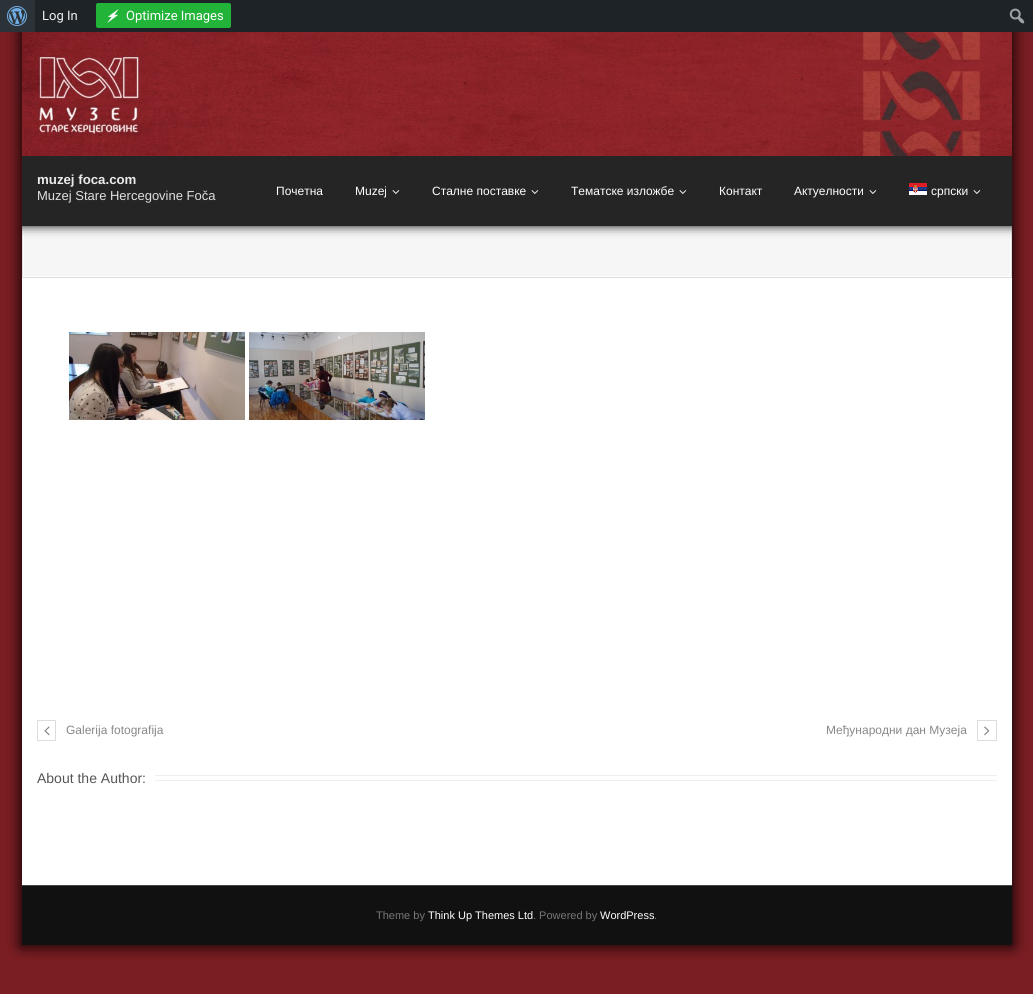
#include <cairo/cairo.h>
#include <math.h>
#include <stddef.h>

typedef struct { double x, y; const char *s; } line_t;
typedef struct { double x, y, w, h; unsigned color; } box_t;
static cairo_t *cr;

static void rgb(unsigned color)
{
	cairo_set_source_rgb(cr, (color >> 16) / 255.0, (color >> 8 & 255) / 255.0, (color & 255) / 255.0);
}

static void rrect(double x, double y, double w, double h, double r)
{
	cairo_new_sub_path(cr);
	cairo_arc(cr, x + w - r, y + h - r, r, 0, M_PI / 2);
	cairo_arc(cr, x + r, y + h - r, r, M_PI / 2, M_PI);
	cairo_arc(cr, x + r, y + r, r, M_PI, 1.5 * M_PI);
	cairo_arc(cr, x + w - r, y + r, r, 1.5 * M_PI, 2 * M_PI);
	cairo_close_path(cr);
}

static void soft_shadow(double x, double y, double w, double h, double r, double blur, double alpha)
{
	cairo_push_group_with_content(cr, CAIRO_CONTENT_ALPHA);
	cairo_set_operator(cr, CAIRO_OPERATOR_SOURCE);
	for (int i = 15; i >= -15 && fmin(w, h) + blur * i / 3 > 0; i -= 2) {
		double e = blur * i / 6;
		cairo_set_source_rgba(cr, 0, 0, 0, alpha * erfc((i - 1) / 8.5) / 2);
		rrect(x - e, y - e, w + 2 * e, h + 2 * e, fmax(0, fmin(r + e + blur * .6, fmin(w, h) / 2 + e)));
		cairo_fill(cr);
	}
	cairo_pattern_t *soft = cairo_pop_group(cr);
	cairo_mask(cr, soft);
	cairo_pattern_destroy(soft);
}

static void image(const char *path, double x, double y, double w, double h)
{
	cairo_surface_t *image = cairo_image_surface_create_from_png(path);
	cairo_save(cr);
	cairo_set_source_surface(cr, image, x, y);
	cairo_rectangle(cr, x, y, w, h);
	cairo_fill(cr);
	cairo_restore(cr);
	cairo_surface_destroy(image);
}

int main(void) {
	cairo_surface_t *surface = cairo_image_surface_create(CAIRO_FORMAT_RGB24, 1033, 994);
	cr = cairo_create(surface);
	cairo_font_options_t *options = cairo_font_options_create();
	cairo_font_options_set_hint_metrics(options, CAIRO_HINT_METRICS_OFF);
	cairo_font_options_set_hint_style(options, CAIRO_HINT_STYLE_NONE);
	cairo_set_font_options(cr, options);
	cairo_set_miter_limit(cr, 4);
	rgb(0x7b1e23);
	cairo_paint(cr);
	rgb(0x000000);
	soft_shadow(21, 31, 992, 915, 0, 7.5, 1);
	rgb(0xf6f6f6);
	cairo_rectangle(cr, 23.5, 227.5, 987, 49);
	cairo_fill_preserve(cr);
	rgb(0xffffff);
	cairo_set_line_width(cr, 1);
	cairo_stroke(cr);
	cairo_rectangle(cr, 22.5, 226.5, 989, 51);
	rgb(0xdddddd);
	cairo_stroke(cr);
	cairo_save(cr);
	cairo_rectangle(cr, 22, 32, 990, 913);
	cairo_clip(cr);
	rgb(0x333333);
	soft_shadow(21, 31, 992, 196, 0, 5, 1);
	cairo_restore(cr);
	rgb(0x1d2327);
	cairo_rectangle(cr, 35, 0, 998, 32);
	cairo_fill(cr);
	rgb(0x2c3338);
	cairo_rectangle(cr, 0, 0, 35, 32);
	cairo_fill(cr);
	image("img/1.png", 7, 6, 20, 20);
	rgb(0x22b339);
	rrect(96, 3, 135, 25, 2);
	cairo_fill(cr);
	image("img/2.png", 107, 9, 12, 14);
	image("img/3.png", 1009, 8, 16, 16);
	rgb(0xffffff);
	cairo_rectangle(cr, 22, 278, 990, 607);
	cairo_fill(cr);
	rgb(0x252525);
	cairo_rectangle(cr, 22, 156, 990, 70);
	cairo_fill(cr);
	image("img/4.png", 22, 32, 990, 124);
	image("img/5.png", 392, 190, 8, 4);
	image("img/5.png", 531, 190, 8, 4);
	image("img/5.png", 679, 190, 8, 4);
	image("img/5.png", 869, 190, 8, 4);
	image("img/6.png", 909, 183, 18, 12);
	image("img/5.png", 973, 190, 8, 4);
	image("img/7.png", 69, 332, 176, 88);
	image("img/8.png", 249, 332, 176, 88);
	cairo_rectangle(cr, 37.5, 720.5, 18, 20);
	rgb(0xdddddd);
	cairo_stroke(cr);
	image("img/9.png", 44, 726, 6, 10);
	cairo_rectangle(cr, 977.5, 720.5, 19, 20);
	cairo_stroke(cr);
	image("img/10.png", 984, 726, 6, 10);
	{
		static const box_t items[] = {
			{155, 775, 842, 1, 0xeeeeee},
			{155, 780, 842, 1, 0xeeeeee},
			{22, 886, 990, 59, 0x111111},
			{22, 885, 990, 1, 0x444444},
		};
		for (size_t i = 0; i < sizeof items / sizeof *items; i++) {
			rgb(items[i].color);
			cairo_rectangle(cr, items[i].x, items[i].y, items[i].w, items[i].h);
			cairo_fill(cr);
		}
	}
	cairo_select_font_face(cr, "Roboto", CAIRO_FONT_SLANT_NORMAL, CAIRO_FONT_WEIGHT_NORMAL);
	cairo_set_font_size(cr, 13);
	rgb(0xf0f0f1);
	cairo_move_to(cr, 42, 20);
	cairo_show_text(cr, "Log In");
	rgb(0xffffff);
	cairo_move_to(cr, 126, 20);
	cairo_show_text(cr, "Optimize Images");
	cairo_select_font_face(cr, "Liberation Sans", CAIRO_FONT_SLANT_NORMAL, CAIRO_FONT_WEIGHT_BOLD);
	cairo_set_font_size(cr, 13.25);
	rgb(0xebebeb);
	cairo_move_to(cr, 37, 184);
	cairo_show_text(cr, "muzej foca.com");
	cairo_select_font_face(cr, "Liberation Sans", CAIRO_FONT_SLANT_NORMAL, CAIRO_FONT_WEIGHT_NORMAL);
	cairo_set_font_size(cr, 13);
	rgb(0xe0e0e0);
	cairo_move_to(cr, 37, 200);
	cairo_show_text(cr, "Muzej Stare Hercegovine Foča");
	cairo_set_font_size(cr, 12);
	rgb(0xffffff);
	{
		static const line_t items[] = {
			{276, 195, "Почетна"},
			{355, 195, "Muzej"},
			{432, 195, "Сталне поставке"},
			{571, 195, "Тематске изложбе"},
			{719, 195, "Контакт"},
			{794, 195, "Актуелности"},
			{931, 195, "српски"},
		};
		for (size_t i = 0; i < sizeof items / sizeof *items; i++) {
			cairo_move_to(cr, items[i].x, items[i].y);
			cairo_show_text(cr, items[i].s);
		}
	}
	rgb(0x888888);
	cairo_move_to(cr, 66, 734);
	cairo_show_text(cr, "Galerija fotografija");
	cairo_move_to(cr, 826, 734);
	cairo_show_text(cr, "Међународни дан Музеја");
	cairo_set_font_size(cr, 14);
	rgb(0x555555);
	cairo_move_to(cr, 37, 783);
	cairo_show_text(cr, "About the Author:");
	cairo_set_font_size(cr, 11);
	rgb(0x777777);
	cairo_move_to(cr, 376, 919);
	cairo_show_text(cr, "Theme by");
	rgb(0xffffff);
	cairo_move_to(cr, 428, 919);
	cairo_show_text(cr, "Think Up Themes Ltd");
	rgb(0x777777);
	cairo_move_to(cr, 533, 919);
	cairo_show_text(cr, ". Powered by");
	rgb(0xffffff);
	cairo_move_to(cr, 600, 919);
	cairo_show_text(cr, "WordPress");
	rgb(0x777777);
	cairo_move_to(cr, 654, 919);
	cairo_show_text(cr, ".");
	cairo_surface_write_to_png(surface, "page.png");
	cairo_font_options_destroy(options);
	cairo_destroy(cr);
	cairo_surface_destroy(surface);
	return 0;
}
